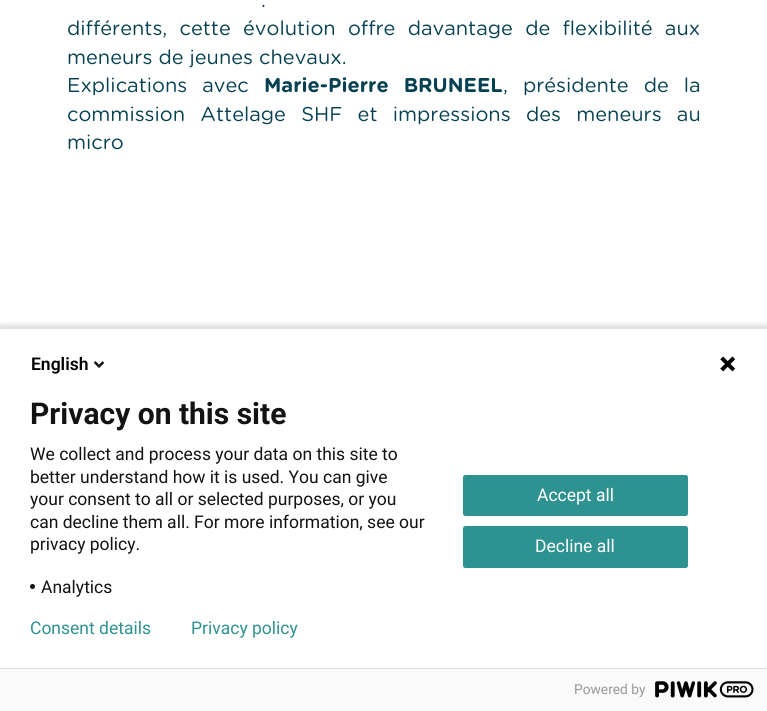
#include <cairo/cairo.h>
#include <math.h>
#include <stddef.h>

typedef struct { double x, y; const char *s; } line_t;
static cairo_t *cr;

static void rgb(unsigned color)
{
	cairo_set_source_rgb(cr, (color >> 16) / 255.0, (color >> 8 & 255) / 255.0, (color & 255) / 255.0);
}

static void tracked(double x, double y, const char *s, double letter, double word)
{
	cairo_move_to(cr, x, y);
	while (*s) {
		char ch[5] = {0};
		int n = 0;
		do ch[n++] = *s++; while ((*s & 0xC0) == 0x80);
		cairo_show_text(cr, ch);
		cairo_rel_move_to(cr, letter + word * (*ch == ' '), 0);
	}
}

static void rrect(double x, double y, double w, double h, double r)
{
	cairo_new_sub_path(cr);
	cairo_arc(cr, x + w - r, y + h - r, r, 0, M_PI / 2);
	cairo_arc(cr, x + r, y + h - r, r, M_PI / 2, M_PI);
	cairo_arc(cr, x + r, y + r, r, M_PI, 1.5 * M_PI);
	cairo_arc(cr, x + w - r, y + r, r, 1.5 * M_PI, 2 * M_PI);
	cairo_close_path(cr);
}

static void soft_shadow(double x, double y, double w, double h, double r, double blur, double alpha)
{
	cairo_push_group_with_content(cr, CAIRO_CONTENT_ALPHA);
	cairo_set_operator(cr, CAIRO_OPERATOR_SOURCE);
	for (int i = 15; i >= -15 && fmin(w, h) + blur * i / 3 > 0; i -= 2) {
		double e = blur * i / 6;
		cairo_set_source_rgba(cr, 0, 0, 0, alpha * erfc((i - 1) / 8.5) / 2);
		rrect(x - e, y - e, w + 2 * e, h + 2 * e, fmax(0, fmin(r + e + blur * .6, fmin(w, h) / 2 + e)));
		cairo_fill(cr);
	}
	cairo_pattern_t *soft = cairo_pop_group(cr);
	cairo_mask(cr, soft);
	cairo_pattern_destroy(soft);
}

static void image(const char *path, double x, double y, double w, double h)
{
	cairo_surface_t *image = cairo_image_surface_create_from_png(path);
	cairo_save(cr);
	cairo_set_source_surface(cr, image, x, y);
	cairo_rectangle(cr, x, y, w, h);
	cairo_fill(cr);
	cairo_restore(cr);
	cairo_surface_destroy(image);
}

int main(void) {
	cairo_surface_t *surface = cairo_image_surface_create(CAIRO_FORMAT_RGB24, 767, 711);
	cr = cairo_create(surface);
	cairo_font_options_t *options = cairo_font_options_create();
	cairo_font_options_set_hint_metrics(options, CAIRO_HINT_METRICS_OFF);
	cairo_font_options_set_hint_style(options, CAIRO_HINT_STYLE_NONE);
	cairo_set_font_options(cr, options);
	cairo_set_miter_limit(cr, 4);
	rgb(0xffffff);
	cairo_paint(cr);
	cairo_save(cr);
	cairo_rectangle(cr, 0, 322, 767, 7);
	cairo_clip(cr);
	rgb(0x000000);
	soft_shadow(-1, 325, 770, 385, 0, 3, 0.14);
	cairo_restore(cr);
	image("img/1.png", 93, 361, 12, 7);
	image("img/2.png", 720, 356, 16, 16);
	rgb(0x131313);
	cairo_arc(cr, 32.5, 586.5, 2.5, 0, 2 * M_PI);
	cairo_fill(cr);
	rgb(0x2d9290);
	rrect(463.5, 475.5, 224, 40, 2);
	cairo_fill_preserve(cr);
	cairo_set_line_width(cr, 1);
	cairo_stroke(cr);
	rrect(463.5, 526.5, 224, 41, 2);
	cairo_fill_preserve(cr);
	cairo_stroke(cr);
	rgb(0xfafafa);
	cairo_rectangle(cr, 0, 669, 767, 42);
	cairo_fill(cr);
	rgb(0xdddddd);
	cairo_rectangle(cr, 0, 668, 767, 1);
	cairo_fill(cr);
	image("img/3.png", 655, 681, 99, 17);
	cairo_select_font_face(cr, "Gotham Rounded", CAIRO_FONT_SLANT_NORMAL, CAIRO_FONT_WEIGHT_NORMAL);
	cairo_set_font_size(cr, 20);
	rgb(0x064151);
	tracked(261, 7, ".", 0, 12);
	tracked(67, 35, "différents, cette évolution offre davantage de flexibilité aux", 0, 6.25);
	cairo_move_to(cr, 67, 64);
	cairo_show_text(cr, "meneurs de jeunes chevaux.");
	tracked(67, 92, "Explications avec", 0, 9);
	cairo_select_font_face(cr, "Gotham Rounded", CAIRO_FONT_SLANT_NORMAL, CAIRO_FONT_WEIGHT_BOLD);
	tracked(264, 92, "Marie-Pierre BRUNEEL", 0, 9);
	cairo_select_font_face(cr, "Gotham Rounded", CAIRO_FONT_SLANT_NORMAL, CAIRO_FONT_WEIGHT_NORMAL);
	tracked(503, 92, ", présidente de la", 0, 9);
	tracked(67, 121, "commission Attelage SHF et impressions des meneurs au", 0, 9.25);
	cairo_move_to(cr, 67, 149);
	cairo_show_text(cr, "micro");
	cairo_select_font_face(cr, "Roboto SemiBold", CAIRO_FONT_SLANT_NORMAL, CAIRO_FONT_WEIGHT_NORMAL);
	cairo_set_font_size(cr, 17.5);
	rgb(0x000000);
	cairo_move_to(cr, 31, 370);
	cairo_show_text(cr, "English");
	cairo_select_font_face(cr, "Roboto", CAIRO_FONT_SLANT_NORMAL, CAIRO_FONT_WEIGHT_BOLD);
	cairo_set_font_size(cr, 30);
	rgb(0x131313);
	cairo_move_to(cr, 30, 424);
	cairo_show_text(cr, "Privacy on this site");
	cairo_select_font_face(cr, "Roboto", CAIRO_FONT_SLANT_NORMAL, CAIRO_FONT_WEIGHT_NORMAL);
	cairo_set_font_size(cr, 17.5);
	{
		static const line_t items[] = {
			{30, 460, "We collect and process your data on this site to"},
			{30, 483, "better understand how it is used. You can give"},
			{30, 505, "your consent to all or selected purposes, or you"},
			{30, 528, "can decline them all. For more information, see our"},
			{30, 550, "privacy policy."},
			{41, 593, "Analytics"},
		};
		for (size_t i = 0; i < sizeof items / sizeof *items; i++) {
			cairo_move_to(cr, items[i].x, items[i].y);
			cairo_show_text(cr, items[i].s);
		}
	}
	rgb(0xffffff);
	cairo_move_to(cr, 537, 501);
	cairo_show_text(cr, "Accept all");
	cairo_move_to(cr, 535, 552);
	cairo_show_text(cr, "Decline all");
	rgb(0x2d9290);
	cairo_move_to(cr, 30, 634);
	cairo_show_text(cr, "Consent details");
	cairo_move_to(cr, 191, 634);
	cairo_show_text(cr, "Privacy policy");
	cairo_set_font_size(cr, 13.75);
	rgb(0x999999);
	cairo_move_to(cr, 574, 694);
	cairo_show_text(cr, "Powered by");
	cairo_surface_write_to_png(surface, "page.png");
	cairo_font_options_destroy(options);
	cairo_destroy(cr);
	cairo_surface_destroy(surface);
	return 0;
}
